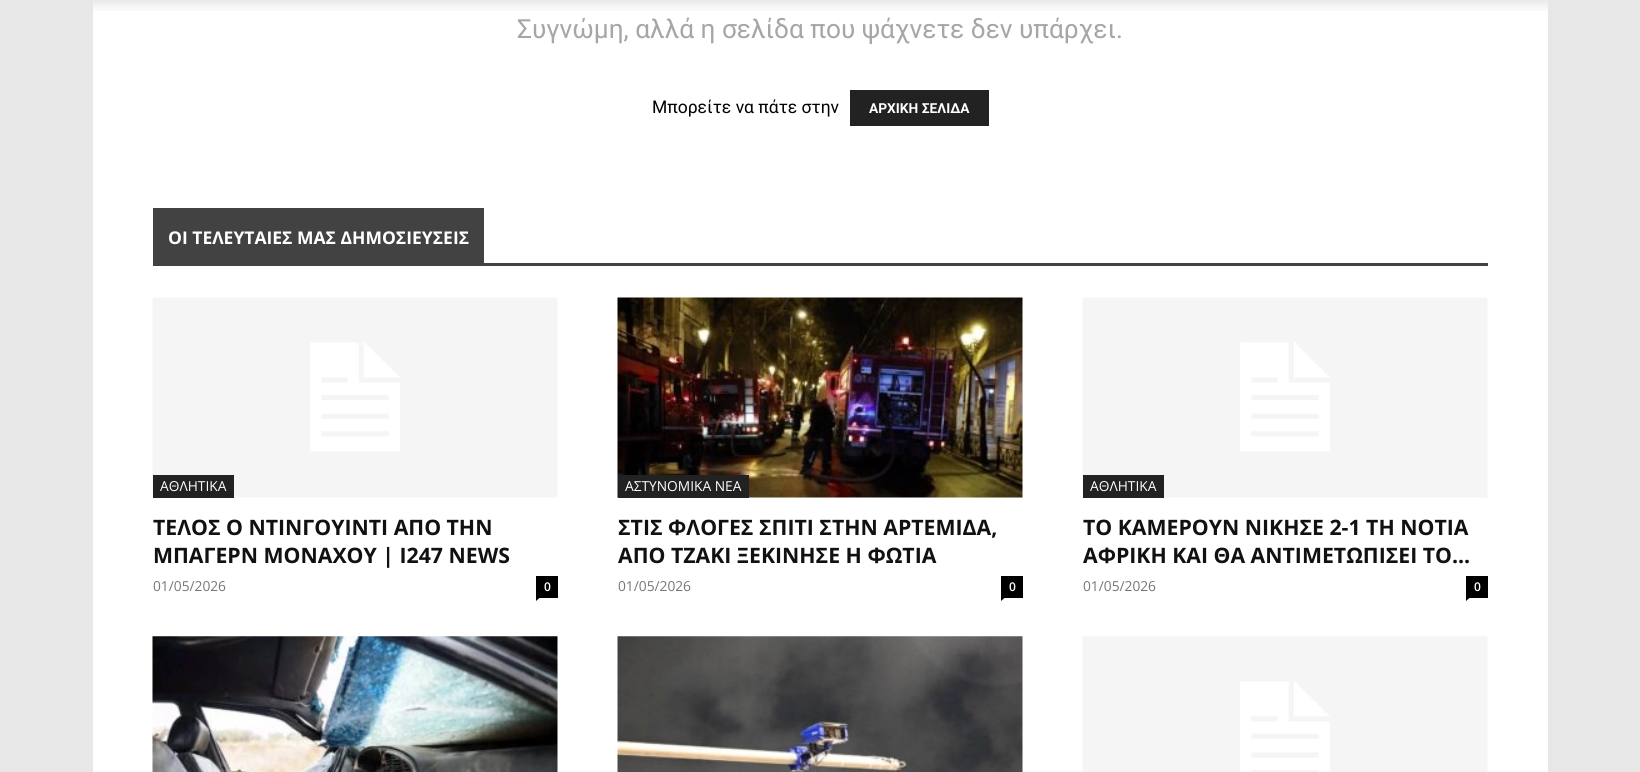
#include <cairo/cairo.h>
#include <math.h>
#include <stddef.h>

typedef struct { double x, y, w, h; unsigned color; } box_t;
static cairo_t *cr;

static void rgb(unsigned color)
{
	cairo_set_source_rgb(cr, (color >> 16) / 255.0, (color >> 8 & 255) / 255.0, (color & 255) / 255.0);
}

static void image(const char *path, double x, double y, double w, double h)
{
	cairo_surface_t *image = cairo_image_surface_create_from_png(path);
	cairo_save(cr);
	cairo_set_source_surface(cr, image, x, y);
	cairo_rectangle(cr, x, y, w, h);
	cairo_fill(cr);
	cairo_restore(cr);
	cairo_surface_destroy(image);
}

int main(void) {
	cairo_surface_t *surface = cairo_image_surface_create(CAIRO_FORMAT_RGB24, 1640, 772);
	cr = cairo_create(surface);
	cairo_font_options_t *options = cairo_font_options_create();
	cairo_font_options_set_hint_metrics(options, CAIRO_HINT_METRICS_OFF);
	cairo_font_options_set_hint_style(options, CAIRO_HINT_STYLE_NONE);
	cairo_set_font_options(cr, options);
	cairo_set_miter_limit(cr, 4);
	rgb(0xe7e7e7);
	cairo_paint(cr);
	rgb(0xffffff);
	cairo_rectangle(cr, 93, 0, 1455, 772);
	cairo_fill(cr);
	image("img/1.png", 93, 0, 1455, 11);
	{
		static const box_t items[] = {
			{850, 90, 139, 36, 0x222222},
			{153, 263, 1335, 3, 0x424242},
			{153, 208, 331, 55, 0x424242},
		};
		for (size_t i = 0; i < sizeof items / sizeof *items; i++) {
			rgb(items[i].color);
			cairo_rectangle(cr, items[i].x, items[i].y, items[i].w, items[i].h);
			cairo_fill(cr);
		}
	}
	image("img/2.png", 152, 297, 406, 201);
	rgb(0x222222);
	cairo_rectangle(cr, 153, 475, 81, 23);
	cairo_fill(cr);
	rgb(0x000000);
	cairo_rectangle(cr, 536, 576, 22, 22);
	cairo_fill(cr);
	cairo_new_path(cr);
	cairo_move_to(cr, 536, 597.5);
	cairo_line_to(cr, 540, 597.5);
	cairo_line_to(cr, 536, 601);
	cairo_close_path(cr);
	cairo_fill(cr);
	image("img/3.png", 617, 297, 406, 201);
	rgb(0x222222);
	cairo_rectangle(cr, 618, 475, 131, 23);
	cairo_fill(cr);
	rgb(0x000000);
	cairo_rectangle(cr, 1001, 576, 22, 22);
	cairo_fill(cr);
	cairo_new_path(cr);
	cairo_move_to(cr, 1001, 597.5);
	cairo_line_to(cr, 1005, 597.5);
	cairo_line_to(cr, 1001, 601);
	cairo_close_path(cr);
	cairo_fill(cr);
	image("img/4.png", 1082, 297, 406, 201);
	rgb(0x222222);
	cairo_rectangle(cr, 1083, 475, 81, 23);
	cairo_fill(cr);
	rgb(0x000000);
	cairo_rectangle(cr, 1466, 576, 22, 22);
	cairo_fill(cr);
	cairo_new_path(cr);
	cairo_move_to(cr, 1466, 597.5);
	cairo_line_to(cr, 1470, 597.5);
	cairo_line_to(cr, 1466, 601);
	cairo_close_path(cr);
	cairo_fill(cr);
	image("img/5.png", 152, 636, 406, 136);
	image("img/6.png", 617, 636, 406, 136);
	image("img/7.png", 1082, 636, 406, 136);
	cairo_select_font_face(cr, "Roboto", CAIRO_FONT_SLANT_NORMAL, CAIRO_FONT_WEIGHT_NORMAL);
	cairo_set_font_size(cr, 26.25);
	rgb(0xa6a6a6);
	cairo_move_to(cr, 517, 38);
	cairo_show_text(cr, "Συγνώμη, αλλά η σελίδα που ψάχνετε δεν υπάρχει.");
	cairo_set_font_size(cr, 17.5);
	rgb(0x000000);
	cairo_move_to(cr, 652, 113);
	cairo_show_text(cr, "Μπορείτε να πάτε στην");
	cairo_select_font_face(cr, "Roboto", CAIRO_FONT_SLANT_NORMAL, CAIRO_FONT_WEIGHT_BOLD);
	cairo_set_font_size(cr, 13.75);
	rgb(0xffffff);
	cairo_move_to(cr, 869, 113);
	cairo_show_text(cr, "ΑΡΧΙΚΗ ΣΕΛΙΔΑ");
	cairo_select_font_face(cr, "Open Sans", CAIRO_FONT_SLANT_NORMAL, CAIRO_FONT_WEIGHT_BOLD);
	cairo_set_font_size(cr, 17.5);
	cairo_move_to(cr, 168, 244);
	cairo_show_text(cr, "ΟΙ ΤΕΛΕΥΤΑΙΕΣ ΜΑΣ ΔΗΜΟΣΙΕΥΣΕΙΣ");
	cairo_select_font_face(cr, "Open Sans", CAIRO_FONT_SLANT_NORMAL, CAIRO_FONT_WEIGHT_NORMAL);
	cairo_set_font_size(cr, 13.75);
	cairo_move_to(cr, 160, 491);
	cairo_show_text(cr, "ΑΘΛΗΤΙΚΑ");
	cairo_select_font_face(cr, "Open Sans", CAIRO_FONT_SLANT_NORMAL, CAIRO_FONT_WEIGHT_BOLD);
	cairo_set_font_size(cr, 21.25);
	rgb(0x111111);
	cairo_move_to(cr, 153, 535);
	cairo_show_text(cr, "ΤΕΛΟΣ Ο ΝΤΙΝΓΟΥΙΝΤΙ ΑΠΟ ΤΗΝ");
	cairo_move_to(cr, 153, 563);
	cairo_show_text(cr, "ΜΠΑΓΕΡΝ ΜΟΝΑΧΟΥ | I247 NEWS");
	cairo_select_font_face(cr, "Open Sans", CAIRO_FONT_SLANT_NORMAL, CAIRO_FONT_WEIGHT_NORMAL);
	cairo_set_font_size(cr, 13.75);
	rgb(0x767676);
	cairo_move_to(cr, 153, 591);
	cairo_show_text(cr, "01/05/2026");
	cairo_select_font_face(cr, "Open Sans SemiBold", CAIRO_FONT_SLANT_NORMAL, CAIRO_FONT_WEIGHT_NORMAL);
	cairo_set_font_size(cr, 12);
	rgb(0xffffff);
	cairo_move_to(cr, 544, 591);
	cairo_show_text(cr, "0");
	cairo_select_font_face(cr, "Open Sans", CAIRO_FONT_SLANT_NORMAL, CAIRO_FONT_WEIGHT_NORMAL);
	cairo_set_font_size(cr, 13.75);
	cairo_move_to(cr, 625, 491);
	cairo_show_text(cr, "ΑΣΤΥΝΟΜΙΚΑ ΝΕΑ");
	cairo_select_font_face(cr, "Open Sans", CAIRO_FONT_SLANT_NORMAL, CAIRO_FONT_WEIGHT_BOLD);
	cairo_set_font_size(cr, 21.25);
	rgb(0x111111);
	cairo_move_to(cr, 618, 535);
	cairo_show_text(cr, "ΣΤΙΣ ΦΛΟΓΕΣ ΣΠΙΤΙ ΣΤΗΝ ΑΡΤΕΜΙΔΑ,");
	cairo_move_to(cr, 618, 563);
	cairo_show_text(cr, "ΑΠΟ ΤΖΑΚΙ ΞΕΚΙΝΗΣΕ Η ΦΩΤΙΑ");
	cairo_select_font_face(cr, "Open Sans", CAIRO_FONT_SLANT_NORMAL, CAIRO_FONT_WEIGHT_NORMAL);
	cairo_set_font_size(cr, 13.75);
	rgb(0x767676);
	cairo_move_to(cr, 618, 591);
	cairo_show_text(cr, "01/05/2026");
	cairo_select_font_face(cr, "Open Sans SemiBold", CAIRO_FONT_SLANT_NORMAL, CAIRO_FONT_WEIGHT_NORMAL);
	cairo_set_font_size(cr, 12);
	rgb(0xffffff);
	cairo_move_to(cr, 1009, 591);
	cairo_show_text(cr, "0");
	cairo_select_font_face(cr, "Open Sans", CAIRO_FONT_SLANT_NORMAL, CAIRO_FONT_WEIGHT_NORMAL);
	cairo_set_font_size(cr, 13.75);
	cairo_move_to(cr, 1090, 491);
	cairo_show_text(cr, "ΑΘΛΗΤΙΚΑ");
	cairo_select_font_face(cr, "Open Sans", CAIRO_FONT_SLANT_NORMAL, CAIRO_FONT_WEIGHT_BOLD);
	cairo_set_font_size(cr, 21.25);
	rgb(0x111111);
	cairo_move_to(cr, 1083, 535);
	cairo_show_text(cr, "ΤΟ ΚΑΜΕΡΟΥΝ ΝΙΚΗΣΕ 2-1 ΤΗ ΝΟΤΙΑ");
	cairo_move_to(cr, 1083, 563);
	cairo_show_text(cr, "ΑΦΡΙΚΗ ΚΑΙ ΘΑ ΑΝΤΙΜΕΤΩΠΙΣΕΙ ΤΟ...");
	cairo_select_font_face(cr, "Open Sans", CAIRO_FONT_SLANT_NORMAL, CAIRO_FONT_WEIGHT_NORMAL);
	cairo_set_font_size(cr, 13.75);
	rgb(0x767676);
	cairo_move_to(cr, 1083, 591);
	cairo_show_text(cr, "01/05/2026");
	cairo_select_font_face(cr, "Open Sans SemiBold", CAIRO_FONT_SLANT_NORMAL, CAIRO_FONT_WEIGHT_NORMAL);
	cairo_set_font_size(cr, 12);
	rgb(0xffffff);
	cairo_move_to(cr, 1474, 591);
	cairo_show_text(cr, "0");
	cairo_surface_write_to_png(surface, "page.png");
	cairo_font_options_destroy(options);
	cairo_destroy(cr);
	cairo_surface_destroy(surface);
	return 0;
}
